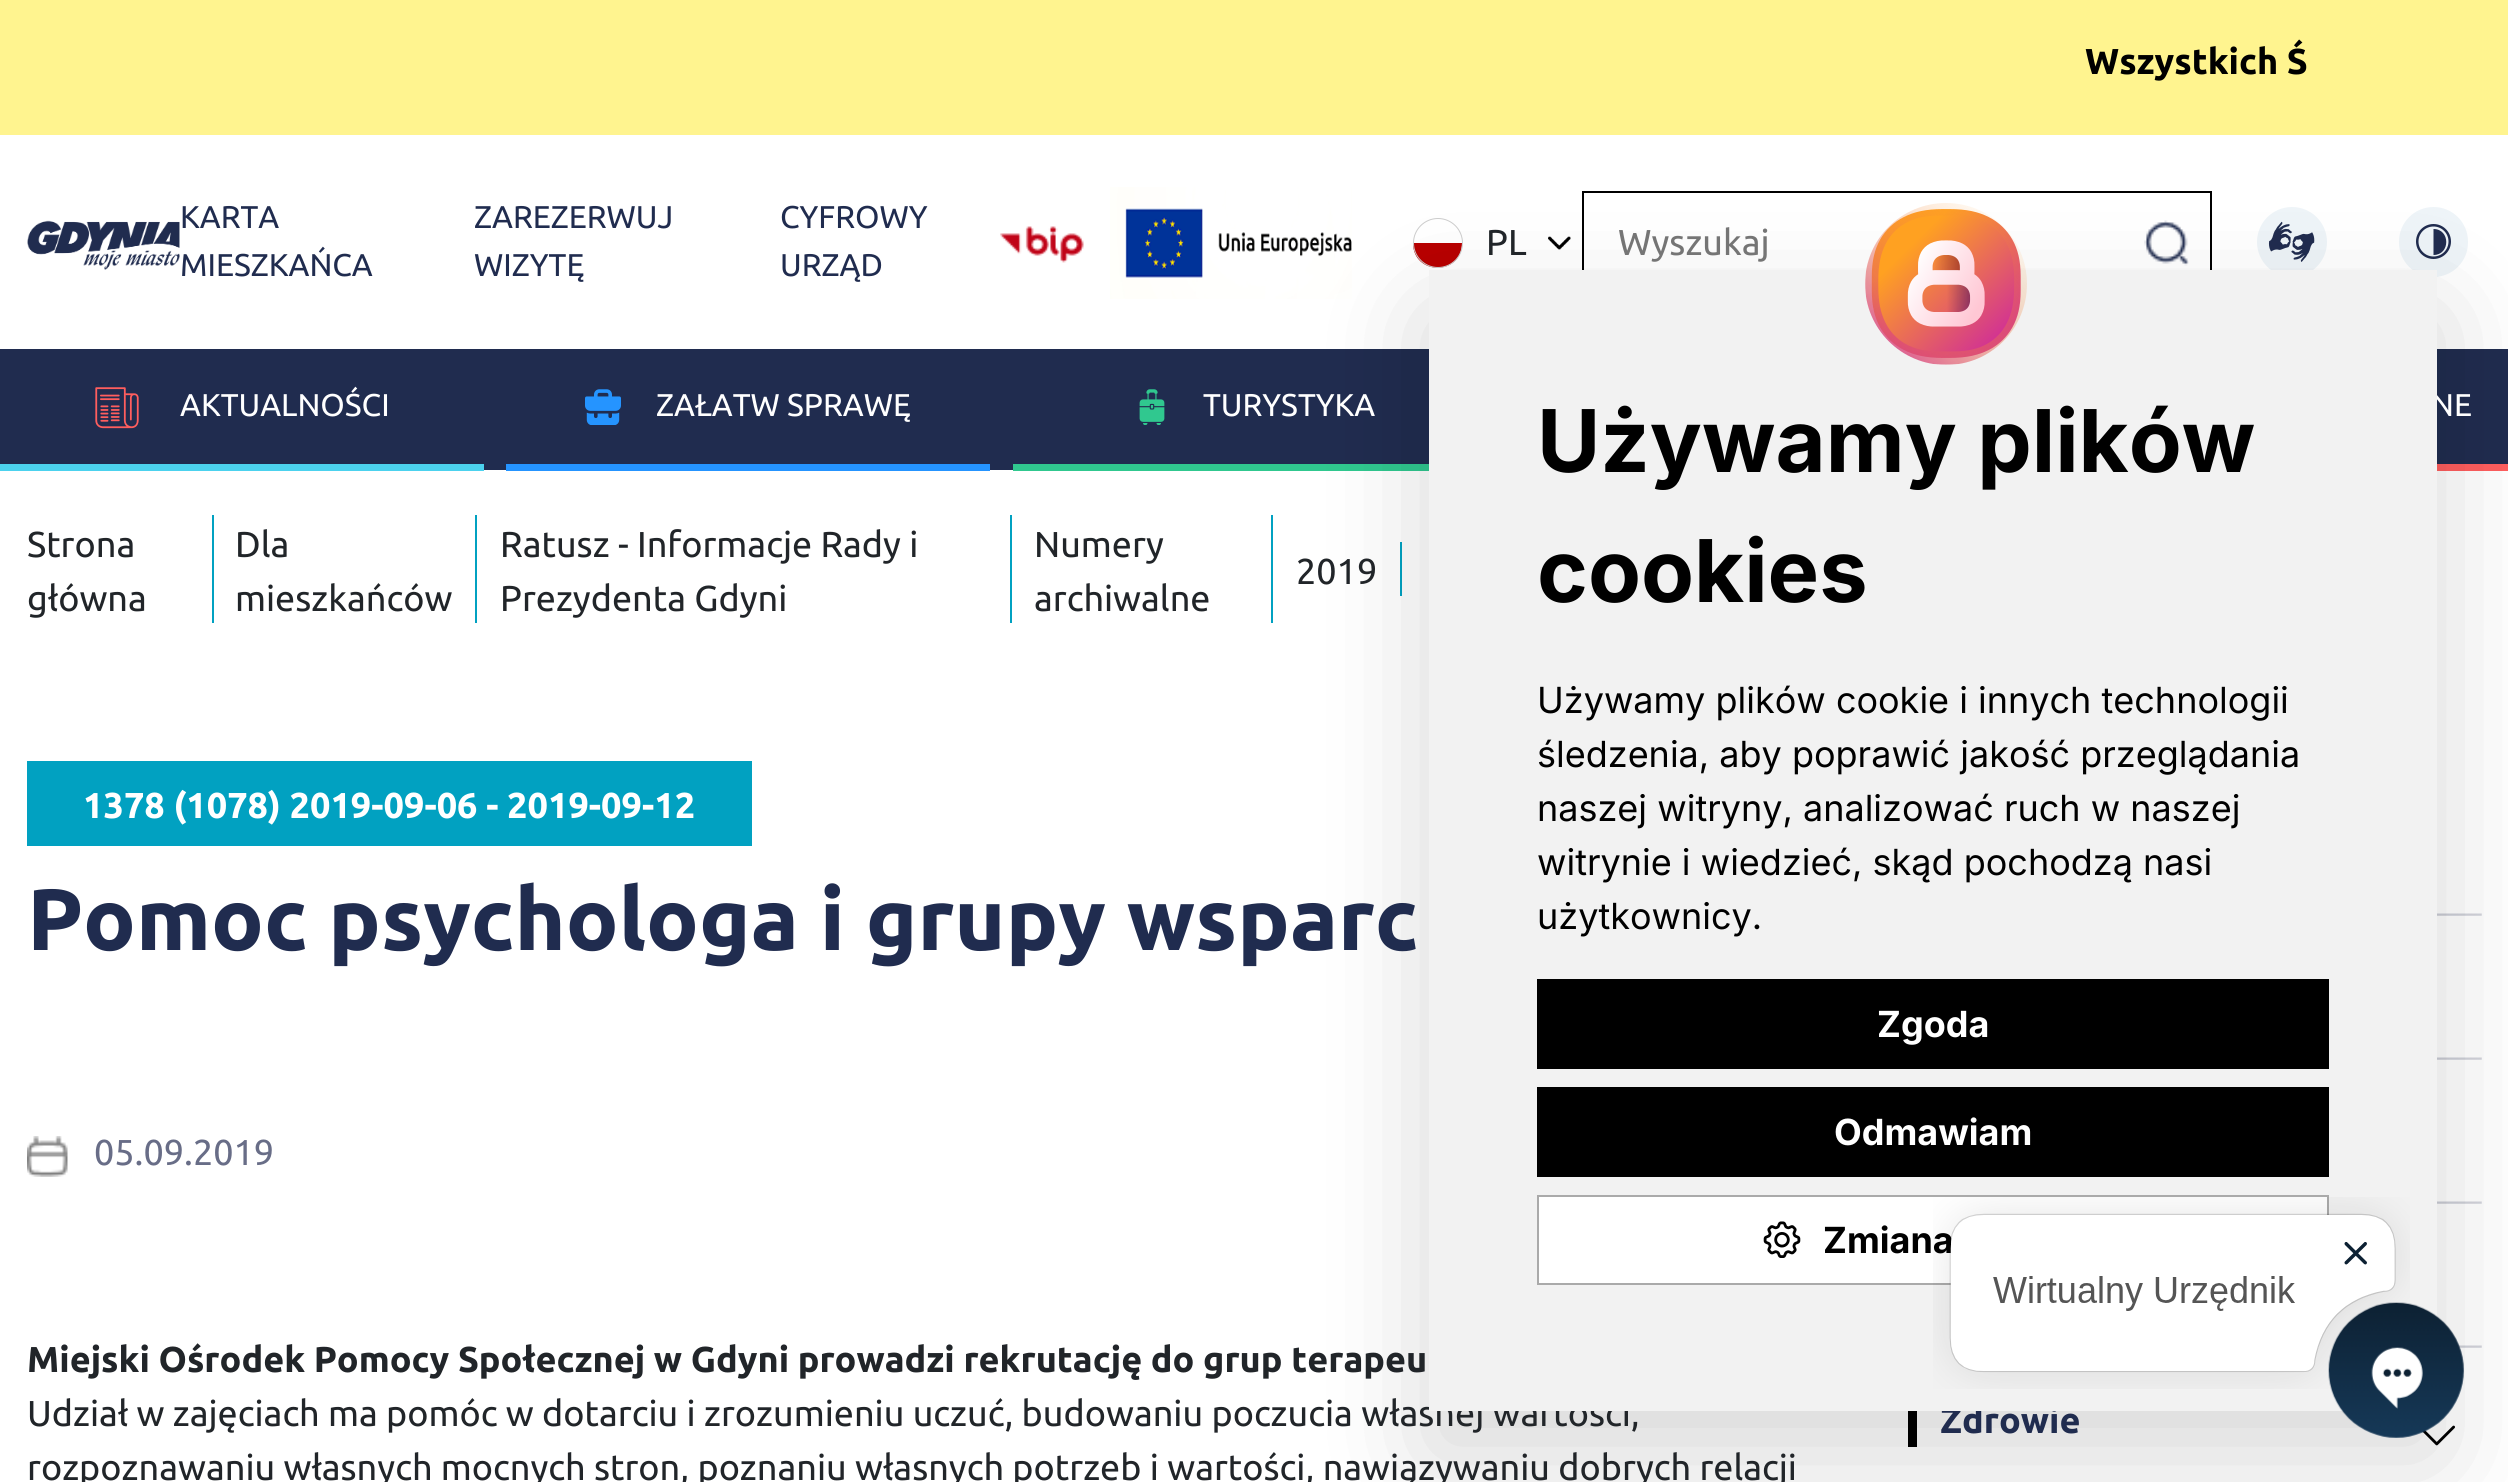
#include <cairo/cairo.h>
#include <math.h>
#include <stddef.h>

typedef struct { double x, y; const char *s; } line_t;
typedef struct { double x, y, w, h; unsigned color; } box_t;
static cairo_t *cr;

static void rgb(unsigned color)
{
	cairo_set_source_rgb(cr, (color >> 16) / 255.0, (color >> 8 & 255) / 255.0, (color & 255) / 255.0);
}

static void rrect(double x, double y, double w, double h, double r)
{
	cairo_new_sub_path(cr);
	cairo_arc(cr, x + w - r, y + h - r, r, 0, M_PI / 2);
	cairo_arc(cr, x + r, y + h - r, r, M_PI / 2, M_PI);
	cairo_arc(cr, x + r, y + r, r, M_PI, 1.5 * M_PI);
	cairo_arc(cr, x + w - r, y + r, r, 1.5 * M_PI, 2 * M_PI);
	cairo_close_path(cr);
}

static void soft_shadow(double x, double y, double w, double h, double r, double blur, double alpha)
{
	cairo_push_group_with_content(cr, CAIRO_CONTENT_ALPHA);
	cairo_set_operator(cr, CAIRO_OPERATOR_SOURCE);
	for (int i = 15; i >= -15 && fmin(w, h) + blur * i / 3 > 0; i -= 2) {
		double e = blur * i / 6;
		cairo_set_source_rgba(cr, 0, 0, 0, alpha * erfc((i - 1) / 8.5) / 2);
		rrect(x - e, y - e, w + 2 * e, h + 2 * e, fmax(0, fmin(r + e + blur * .6, fmin(w, h) / 2 + e)));
		cairo_fill(cr);
	}
	cairo_pattern_t *soft = cairo_pop_group(cr);
	cairo_mask(cr, soft);
	cairo_pattern_destroy(soft);
}

static void image(const char *path, double x, double y, double w, double h)
{
	cairo_surface_t *image = cairo_image_surface_create_from_png(path);
	cairo_save(cr);
	cairo_set_source_surface(cr, image, x, y);
	cairo_rectangle(cr, x, y, w, h);
	cairo_fill(cr);
	cairo_restore(cr);
	cairo_surface_destroy(image);
}

int main(void) {
	cairo_surface_t *surface = cairo_image_surface_create(CAIRO_FORMAT_RGB24, 2508, 1482);
	cr = cairo_create(surface);
	cairo_font_options_t *options = cairo_font_options_create();
	cairo_font_options_set_hint_metrics(options, CAIRO_HINT_METRICS_OFF);
	cairo_font_options_set_hint_style(options, CAIRO_HINT_STYLE_NONE);
	cairo_set_font_options(cr, options);
	cairo_set_miter_limit(cr, 4);
	rgb(0xffffff);
	cairo_paint(cr);
	rgb(0xfff48f);
	cairo_rectangle(cr, 0, 0, 2508, 135);
	cairo_fill(cr);
	image("img/1.png", 27, 220, 153, 50);
	image("img/2.png", 1000, 226, 84, 37);
	image("img/3.png", 1110, 187, 242, 112);
	rgb(0xb80000);
	cairo_new_path(cr);
	cairo_move_to(cr, 1413, 243);
	cairo_line_to(cr, 1462, 243);
	cairo_curve_to(cr, 1462, 276, 1413, 276, 1413, 243);
	cairo_close_path(cr);
	cairo_fill(cr);
	cairo_arc(cr, 1438, 243, 24.5, 0, 2 * M_PI);
	rgb(0xcdcdcd);
	cairo_set_line_width(cr, 1);
	cairo_stroke(cr);
	image("img/4.png", 1548, 236, 23, 14);
	cairo_rectangle(cr, 1583, 192, 628, 102);
	rgb(0x000000);
	cairo_set_line_width(cr, 2);
	cairo_stroke(cr);
	image("img/5.png", 2144, 220, 45, 46);
	image("img/6.png", 2257, 207, 70, 63);
	rgb(0xeef4f8);
	rrect(2399, 207, 69, 70, 34.5);
	cairo_fill(cr);
	cairo_arc(cr, 2433.5, 241.5, 16.25, 0, 2 * M_PI);
	rgb(0x202c4f);
	cairo_set_line_width(cr, 2.5);
	cairo_stroke(cr);
	cairo_new_path(cr);
	cairo_move_to(cr, 2433.5, 229);
	cairo_curve_to(cr, 2450.5, 229, 2450.5, 255, 2433.5, 255);
	cairo_close_path(cr);
	cairo_fill(cr);
	cairo_rectangle(cr, 0, 349, 2508, 121);
	cairo_fill(cr);
	rgb(0x4cd2ee);
	cairo_rectangle(cr, 0, 464, 484, 7);
	cairo_fill(cr);
	image("img/7.png", 95, 387, 44, 42);
	rgb(0x2594ff);
	cairo_rectangle(cr, 506, 464, 484, 7);
	cairo_fill(cr);
	image("img/8.png", 585, 389, 36, 36);
	rgb(0x30c88f);
	cairo_rectangle(cr, 1013, 464, 416, 7);
	cairo_fill(cr);
	image("img/9.png", 1139, 389, 26, 36);
	{
		static const box_t items[] = {
			{2437, 464, 71, 7, 0xff5e5e},
			{1271, 515, 2, 108, 0x01a1c1},
			{1400, 542, 2, 54, 0x01a1c1},
		};
		for (size_t i = 0; i < sizeof items / sizeof *items; i++) {
			rgb(items[i].color);
			cairo_rectangle(cr, items[i].x, items[i].y, items[i].w, items[i].h);
			cairo_fill(cr);
		}
	}
	image("img/13.png", 2437, 913, 45, 3);
	image("img/13.png", 2437, 1057, 45, 3);
	image("img/13.png", 2437, 1201, 45, 3);
	image("img/14.png", 2458, 1345, 24, 3);
	rgb(0x000000);
	cairo_rectangle(cr, 1908, 1411, 9, 36);
	cairo_fill(cr);
	image("img/15.png", 2422, 1425, 33, 21);
	rgb(0x000000);
	soft_shadow(1429, 315, 1008, 1141, 0, 56, 0.16);
	{
		static const box_t items[] = {
			{212, 515, 2, 108, 0x01a1c1},
			{475, 515, 2, 108, 0x01a1c1},
			{1010, 515, 2, 108, 0x01a1c1},
			{27, 761, 725, 85, 0x01a1c1},
		};
		for (size_t i = 0; i < sizeof items / sizeof *items; i++) {
			rgb(items[i].color);
			cairo_rectangle(cr, items[i].x, items[i].y, items[i].w, items[i].h);
			cairo_fill(cr);
		}
	}
	image("img/12.png", 27, 1136, 41, 41);
	cairo_select_font_face(cr, "Ubuntu", CAIRO_FONT_SLANT_NORMAL, CAIRO_FONT_WEIGHT_BOLD);
	cairo_set_font_size(cr, 36);
	rgb(0x000000);
	cairo_move_to(cr, 2085, 74);
	cairo_show_text(cr, "Wszystkich Ś");
	cairo_select_font_face(cr, "Ubuntu", CAIRO_FONT_SLANT_NORMAL, CAIRO_FONT_WEIGHT_NORMAL);
	cairo_set_font_size(cr, 31.5);
	rgb(0x202c4f);
	{
		static const line_t items[] = {
			{180, 228, "KARTA"},
			{180, 276, "MIESZKAŃCA"},
			{474, 228, "ZAREZERWUJ"},
			{474, 276, "WIZYTĘ"},
			{780, 228, "CYFROWY"},
			{780, 276, "URZĄD"},
		};
		for (size_t i = 0; i < sizeof items / sizeof *items; i++) {
			cairo_move_to(cr, items[i].x, items[i].y);
			cairo_show_text(cr, items[i].s);
		}
	}
	cairo_set_font_size(cr, 36);
	rgb(0x212529);
	cairo_move_to(cr, 1486, 255);
	cairo_show_text(cr, "PL");
	rgb(0x757575);
	cairo_move_to(cr, 1618, 255);
	cairo_show_text(cr, "Wyszukaj");
	cairo_set_font_size(cr, 31.5);
	rgb(0xffffff);
	{
		static const line_t items[] = {
			{180, 416, "AKTUALNOŚCI"},
			{656, 416, "ZAŁATW SPRAWĘ"},
			{1203, 416, "TURYSTYKA"},
			{2431, 416, "NE"},
		};
		for (size_t i = 0; i < sizeof items / sizeof *items; i++) {
			cairo_move_to(cr, items[i].x, items[i].y);
			cairo_show_text(cr, items[i].s);
		}
	}
	cairo_set_font_size(cr, 36);
	rgb(0x212529);
	{
		static const line_t items[] = {
			{27, 557, "Strona"},
			{27, 611, "główna"},
			{235, 557, "Dla"},
			{235, 611, "mieszkańców"},
			{500, 557, "Ratusz - Informacje Rady i"},
			{500, 611, "Prezydenta Gdyni"},
			{1034, 557, "Numery"},
			{1034, 611, "archiwalne"},
			{1296, 584, "2019"},
		};
		for (size_t i = 0; i < sizeof items / sizeof *items; i++) {
			cairo_move_to(cr, items[i].x, items[i].y);
			cairo_show_text(cr, items[i].s);
		}
	}
	cairo_select_font_face(cr, "Ubuntu", CAIRO_FONT_SLANT_NORMAL, CAIRO_FONT_WEIGHT_BOLD);
	rgb(0xffffff);
	cairo_move_to(cr, 83, 818);
	cairo_show_text(cr, "1378 (1078) 2019-09-06 - 2019-09-12");
	cairo_set_font_size(cr, 87.1);
	rgb(0x202c4f);
	cairo_move_to(cr, 27, 950);
	cairo_show_text(cr, "Pomoc psychologa i grupy wsparc");
	cairo_select_font_face(cr, "Ubuntu", CAIRO_FONT_SLANT_NORMAL, CAIRO_FONT_WEIGHT_NORMAL);
	cairo_set_font_size(cr, 36);
	rgb(0x686d87);
	cairo_move_to(cr, 94, 1165);
	cairo_show_text(cr, "05.09.2019");
	cairo_select_font_face(cr, "Ubuntu", CAIRO_FONT_SLANT_NORMAL, CAIRO_FONT_WEIGHT_BOLD);
	rgb(0x212529);
	cairo_move_to(cr, 27, 1372);
	cairo_show_text(cr, "Miejski Ośrodek Pomocy Społecznej w Gdyni prowadzi rekrutację do grup terapeu");
	cairo_select_font_face(cr, "Ubuntu", CAIRO_FONT_SLANT_NORMAL, CAIRO_FONT_WEIGHT_NORMAL);
	cairo_move_to(cr, 27, 1426);
	cairo_show_text(cr, "Udział w zajęciach ma pomóc w dotarciu i zrozumieniu uczuć, budowaniu poczucia własnej wartości,");
	cairo_move_to(cr, 27, 1480);
	cairo_show_text(cr, "rozpoznawaniu własnych mocnych stron, poznaniu własnych potrzeb i wartości, nawiązywaniu dobrych relacji");
	cairo_select_font_face(cr, "Ubuntu", CAIRO_FONT_SLANT_NORMAL, CAIRO_FONT_WEIGHT_BOLD);
	rgb(0x202c4f);
	cairo_move_to(cr, 1940, 1433);
	cairo_show_text(cr, "Zdrowie");
	rgb(0xf2f2f2);
	cairo_rectangle(cr, 1429, 270, 1008, 1141);
	cairo_fill(cr);
	image("img/10.png", 1865, 203, 162, 162);
	rgb(0xffffff);
	cairo_rectangle(cr, 1538, 1196, 790, 88);
	cairo_fill_preserve(cr);
	rgb(0xaaaaaa);
	cairo_set_line_width(cr, 2);
	cairo_stroke(cr);
	cairo_select_font_face(cr, "Inter", CAIRO_FONT_SLANT_NORMAL, CAIRO_FONT_WEIGHT_BOLD);
	rgb(0x000000);
	cairo_move_to(cr, 1823, 1253);
	cairo_show_text(cr, "Zmiana");
	image("img/11.png", 1763, 1221, 38, 37);
	cairo_rectangle(cr, 1537, 1087, 792, 90);
	cairo_fill(cr);
	rgb(0xffffff);
	cairo_move_to(cr, 1834, 1145);
	cairo_show_text(cr, "Odmawiam");
	rgb(0x000000);
	cairo_rectangle(cr, 1537, 979, 792, 90);
	cairo_fill(cr);
	rgb(0xffffff);
	cairo_move_to(cr, 1877, 1037);
	cairo_show_text(cr, "Zgoda");
	cairo_select_font_face(cr, "Inter", CAIRO_FONT_SLANT_NORMAL, CAIRO_FONT_WEIGHT_NORMAL);
	rgb(0x000000);
	{
		static const line_t items[] = {
			{1537, 929, "użytkownicy."},
			{1537, 875, "witrynie i wiedzieć, skąd pochodzą nasi"},
			{1537, 821, "naszej witryny, analizować ruch w naszej"},
			{1537, 767, "śledzenia, aby poprawić jakość przeglądania"},
			{1537, 713, "Używamy plików cookie i innych technologii"},
		};
		for (size_t i = 0; i < sizeof items / sizeof *items; i++) {
			cairo_move_to(cr, items[i].x, items[i].y);
			cairo_show_text(cr, items[i].s);
		}
	}
	cairo_select_font_face(cr, "Inter", CAIRO_FONT_SLANT_NORMAL, CAIRO_FONT_WEIGHT_BOLD);
	cairo_set_font_size(cr, 86.5);
	cairo_move_to(cr, 1537, 602);
	cairo_show_text(cr, "cookies");
	cairo_move_to(cr, 1537, 472);
	cairo_show_text(cr, "Używamy plików");
	image("img/16.png", 1933, 1197, 477, 192);
	image("img/17.png", 2328, 1302, 136, 136);
	cairo_surface_write_to_png(surface, "page.png");
	cairo_font_options_destroy(options);
	cairo_destroy(cr);
	cairo_surface_destroy(surface);
	return 0;
}
